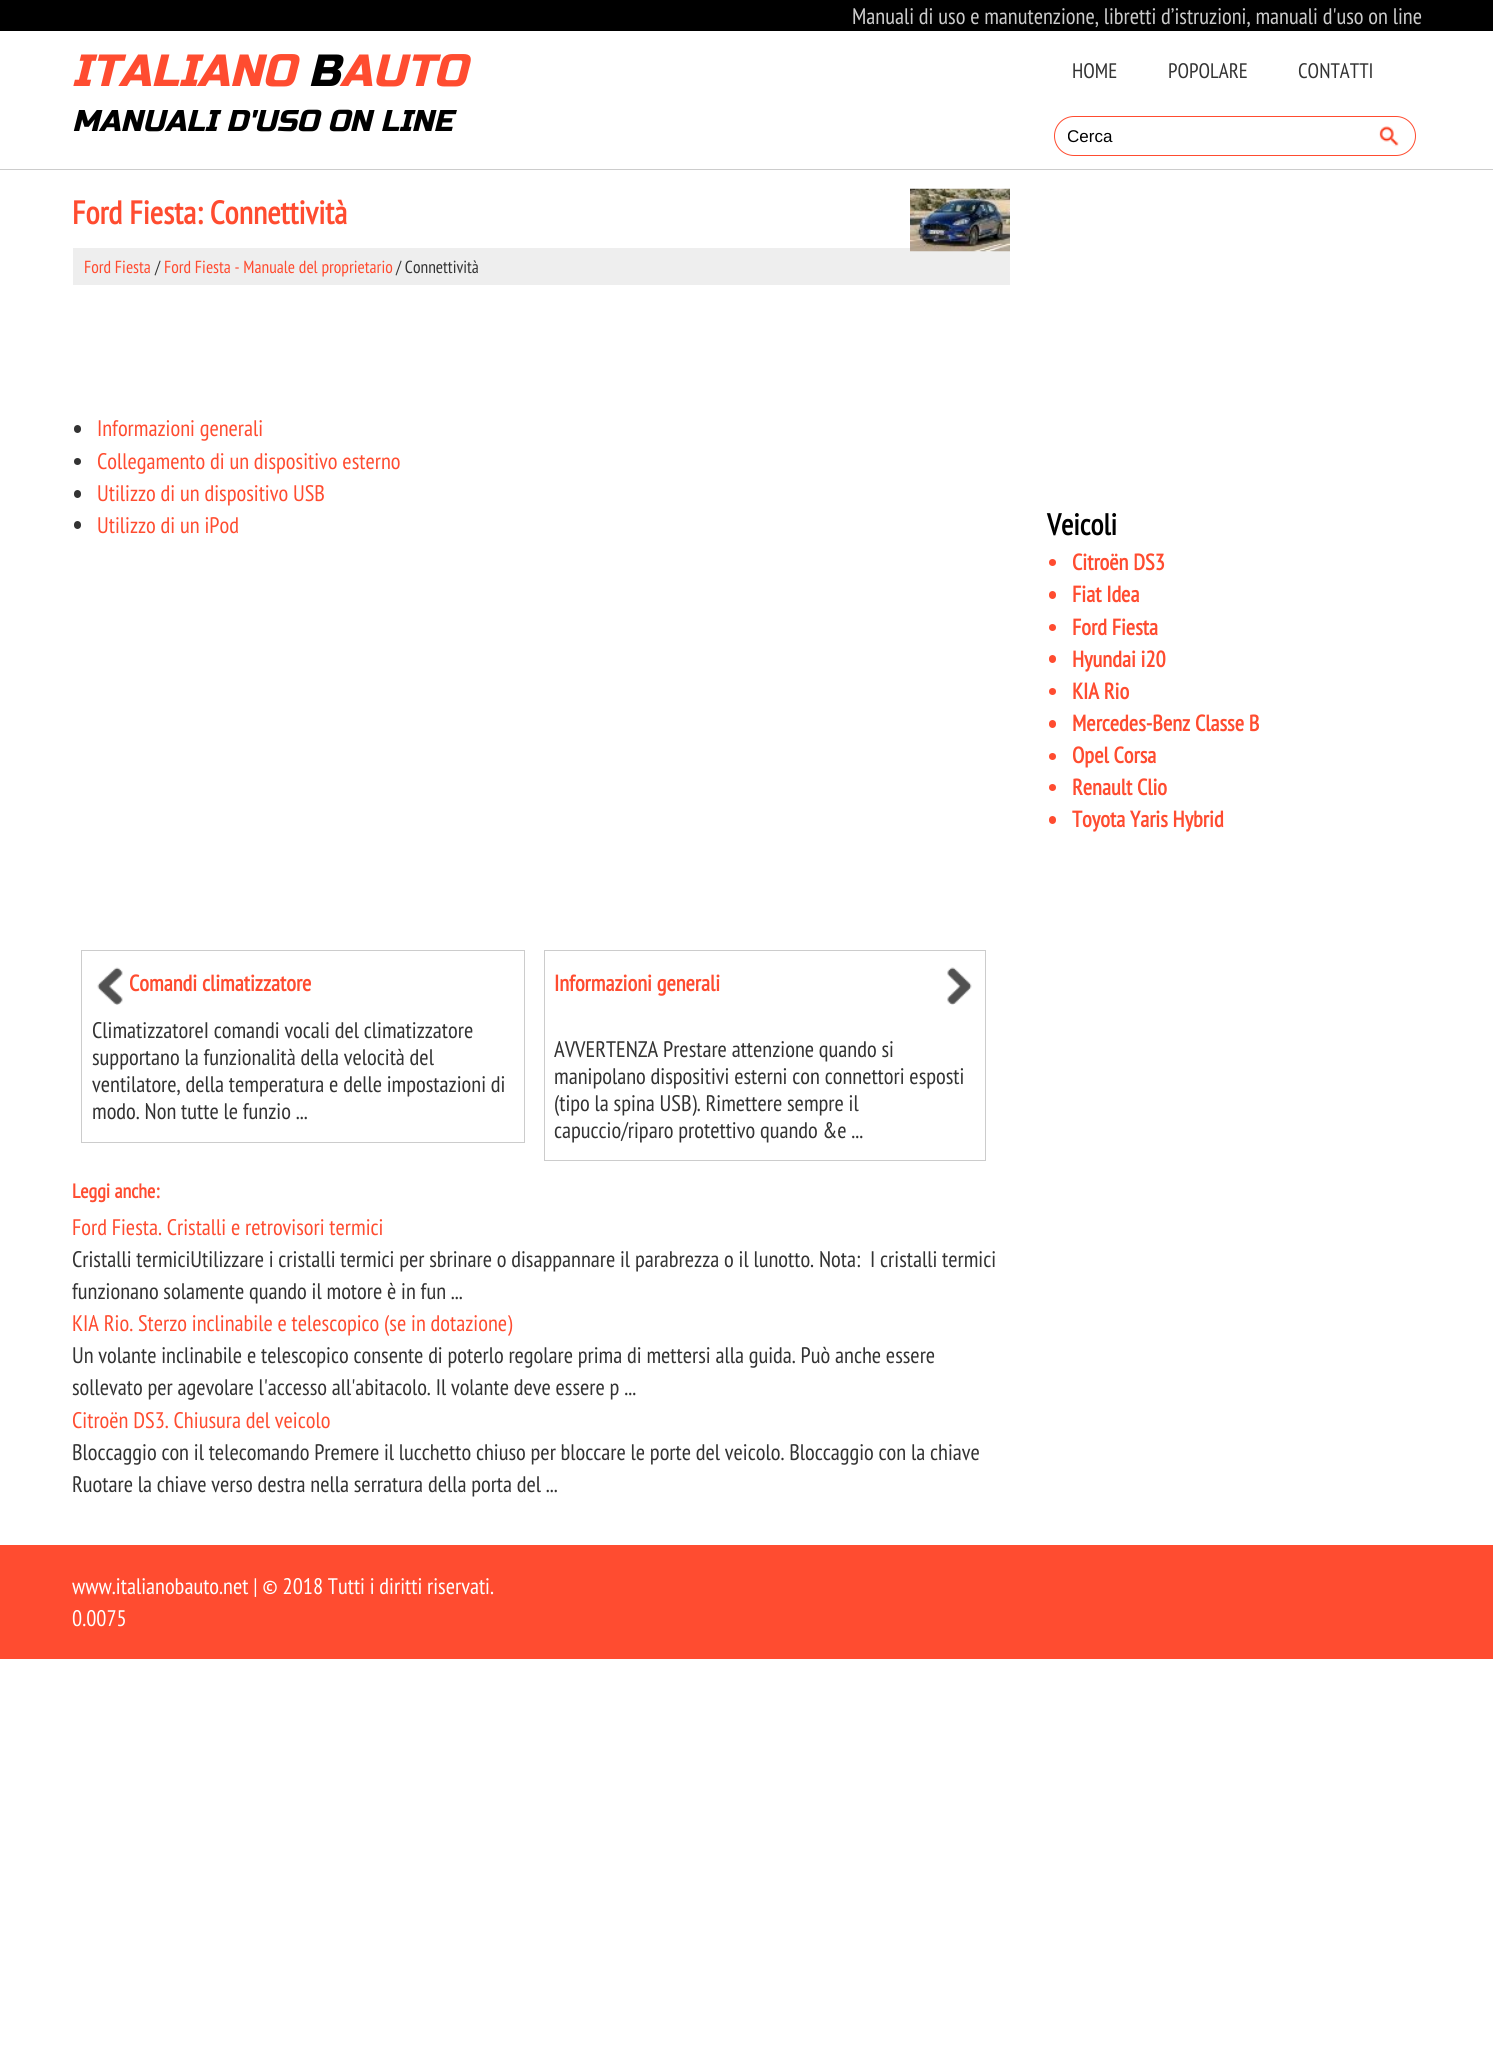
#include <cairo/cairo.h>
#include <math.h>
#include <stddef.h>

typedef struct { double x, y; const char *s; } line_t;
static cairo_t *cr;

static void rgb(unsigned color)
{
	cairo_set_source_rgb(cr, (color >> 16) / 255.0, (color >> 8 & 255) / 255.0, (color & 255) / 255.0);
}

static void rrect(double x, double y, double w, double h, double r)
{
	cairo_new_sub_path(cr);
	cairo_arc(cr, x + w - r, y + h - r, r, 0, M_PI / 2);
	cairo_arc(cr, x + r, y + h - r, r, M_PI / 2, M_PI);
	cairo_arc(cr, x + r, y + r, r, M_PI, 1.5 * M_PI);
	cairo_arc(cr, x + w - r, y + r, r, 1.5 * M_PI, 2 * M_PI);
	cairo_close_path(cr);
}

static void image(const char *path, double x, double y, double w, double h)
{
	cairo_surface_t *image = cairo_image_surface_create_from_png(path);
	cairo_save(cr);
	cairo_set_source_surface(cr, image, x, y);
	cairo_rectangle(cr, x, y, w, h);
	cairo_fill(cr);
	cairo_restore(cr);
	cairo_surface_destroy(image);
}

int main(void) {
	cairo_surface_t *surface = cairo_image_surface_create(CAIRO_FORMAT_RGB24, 1493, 2063);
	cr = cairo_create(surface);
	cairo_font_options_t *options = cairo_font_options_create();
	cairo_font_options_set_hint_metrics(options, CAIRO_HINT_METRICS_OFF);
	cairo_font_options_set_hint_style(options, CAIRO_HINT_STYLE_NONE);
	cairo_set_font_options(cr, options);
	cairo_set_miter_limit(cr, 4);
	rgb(0xffffff);
	cairo_paint(cr);
	rgb(0x000000);
	cairo_rectangle(cr, 0, 0, 1493, 31);
	cairo_fill(cr);
	rgb(0xcccccc);
	cairo_rectangle(cr, 0, 169, 1493, 1);
	cairo_fill(cr);
	rrect(1054.5, 116.5, 361, 39, 19.5);
	rgb(0xff4c30);
	cairo_set_line_width(cr, 1);
	cairo_stroke(cr);
	image("img/1.png", 1379, 126, 20, 21);
	rgb(0xeeeeee);
	cairo_rectangle(cr, 73, 248, 937, 37);
	cairo_fill(cr);
	image("img/2.png", 910, 188, 100, 64);
	rgb(0x333333);
	rrect(74, 425, 7, 8, 3.5);
	cairo_fill(cr);
	cairo_arc(cr, 77.5, 461.5, 3.5, 0, 2 * M_PI);
	cairo_fill(cr);
	rrect(74, 490, 7, 8, 3.5);
	cairo_fill(cr);
	rrect(74, 521, 7, 8, 3.5);
	cairo_fill(cr);
	cairo_rectangle(cr, 81.5, 950.5, 443, 192);
	rgb(0xcccccc);
	cairo_stroke(cr);
	image("img/3.png", 97, 967, 26, 38);
	cairo_rectangle(cr, 544.5, 950.5, 441, 210);
	cairo_stroke(cr);
	image("img/4.png", 947, 967, 25, 38);
	rgb(0xff4c30);
	cairo_arc(cr, 1052.5, 562.5, 3.5, 0, 2 * M_PI);
	cairo_fill(cr);
	rrect(1049, 591, 7, 8, 3.5);
	cairo_fill(cr);
	cairo_arc(cr, 1052.5, 627.5, 3.5, 0, 2 * M_PI);
	cairo_fill(cr);
	rrect(1049, 655, 7, 8, 3.5);
	cairo_fill(cr);
	cairo_arc(cr, 1052.5, 691.5, 3.5, 0, 2 * M_PI);
	cairo_fill(cr);
	rrect(1049, 720, 7, 8, 3.5);
	cairo_fill(cr);
	cairo_arc(cr, 1052.5, 756.5, 3.5, 0, 2 * M_PI);
	cairo_fill(cr);
	cairo_arc(cr, 1052.5, 787.5, 3.5, 0, 2 * M_PI);
	cairo_fill(cr);
	rrect(1049, 816, 7, 8, 3.5);
	cairo_fill(cr);
	cairo_rectangle(cr, 0, 1545, 1493, 114);
	cairo_fill(cr);
	cairo_select_font_face(cr, "PT Sans Narrow", CAIRO_FONT_SLANT_NORMAL, CAIRO_FONT_WEIGHT_NORMAL);
	cairo_set_font_size(cr, 22.5);
	rgb(0xcccccc);
	cairo_move_to(cr, 852, 24);
	cairo_show_text(cr, "Manuali di uso e manutenzione, libretti d’istruzioni, manuali d'uso on line");
	cairo_select_font_face(cr, "Russo One", CAIRO_FONT_SLANT_ITALIC, CAIRO_FONT_WEIGHT_NORMAL);
	cairo_set_font_size(cr, 45);
	rgb(0xff4c30);
	cairo_move_to(cr, 72, 86);
	cairo_show_text(cr, "ITALIANO");
	rgb(0x000000);
	cairo_move_to(cr, 308, 86);
	cairo_show_text(cr, "B");
	rgb(0xff4c30);
	cairo_move_to(cr, 340, 86);
	cairo_show_text(cr, "AUTO");
	cairo_set_font_size(cr, 30);
	rgb(0x000000);
	cairo_move_to(cr, 72, 131);
	cairo_show_text(cr, "MANUALI D'USO ON LINE");
	cairo_select_font_face(cr, "PT Sans Narrow", CAIRO_FONT_SLANT_NORMAL, CAIRO_FONT_WEIGHT_NORMAL);
	cairo_set_font_size(cr, 21);
	rgb(0x333333);
	{
		static const line_t items[] = {
			{1072, 78, "HOME"},
			{1168, 78, "POPOLARE"},
			{1298, 78, "CONTATTI"},
		};
		for (size_t i = 0; i < sizeof items / sizeof *items; i++) {
			cairo_move_to(cr, items[i].x, items[i].y);
			cairo_show_text(cr, items[i].s);
		}
	}
	cairo_save(cr);
	cairo_rectangle(cr, 1068, 126, 306, 19);
	cairo_clip(cr);
	cairo_select_font_face(cr, "Liberation Sans", CAIRO_FONT_SLANT_NORMAL, CAIRO_FONT_WEIGHT_NORMAL);
	cairo_set_font_size(cr, 17);
	rgb(0x000000);
	cairo_move_to(cr, 1067, 142);
	cairo_show_text(cr, "Cerca");
	cairo_restore(cr);
	cairo_select_font_face(cr, "PT Sans Narrow", CAIRO_FONT_SLANT_NORMAL, CAIRO_FONT_WEIGHT_BOLD);
	cairo_set_font_size(cr, 32.5);
	rgb(0xff4c30);
	cairo_move_to(cr, 72, 224);
	cairo_show_text(cr, "Ford Fiesta: Connettività");
	cairo_select_font_face(cr, "PT Sans Narrow", CAIRO_FONT_SLANT_NORMAL, CAIRO_FONT_WEIGHT_NORMAL);
	cairo_set_font_size(cr, 17.5);
	cairo_move_to(cr, 84, 273);
	cairo_show_text(cr, "Ford Fiesta");
	rgb(0x333333);
	cairo_move_to(cr, 155, 273);
	cairo_show_text(cr, "/");
	rgb(0xff4c30);
	cairo_move_to(cr, 164, 273);
	cairo_show_text(cr, "Ford Fiesta - Manuale del proprietario");
	rgb(0x333333);
	cairo_move_to(cr, 396, 273);
	cairo_show_text(cr, "/ Connettività");
	cairo_set_font_size(cr, 22.5);
	rgb(0xff4c30);
	{
		static const line_t items[] = {
			{97, 436, "Informazioni generali"},
			{97, 469, "Collegamento di un dispositivo esterno"},
			{97, 501, "Utilizzo di un dispositivo USB"},
			{97, 533, "Utilizzo di un iPod"},
		};
		for (size_t i = 0; i < sizeof items / sizeof *items; i++) {
			cairo_move_to(cr, items[i].x, items[i].y);
			cairo_show_text(cr, items[i].s);
		}
	}
	cairo_select_font_face(cr, "PT Sans Narrow", CAIRO_FONT_SLANT_NORMAL, CAIRO_FONT_WEIGHT_BOLD);
	cairo_move_to(cr, 129, 991);
	cairo_show_text(cr, "Comandi climatizzatore");
	cairo_select_font_face(cr, "PT Sans Narrow", CAIRO_FONT_SLANT_NORMAL, CAIRO_FONT_WEIGHT_NORMAL);
	rgb(0x333333);
	{
		static const line_t items[] = {
			{92, 1038, "ClimatizzatoreI comandi vocali del climatizzatore"},
			{92, 1065, "supportano la funzionalità della velocità del"},
			{92, 1092, "ventilatore, della temperatura e delle impostazioni di"},
			{92, 1119, "modo. Non tutte le funzio ..."},
		};
		for (size_t i = 0; i < sizeof items / sizeof *items; i++) {
			cairo_move_to(cr, items[i].x, items[i].y);
			cairo_show_text(cr, items[i].s);
		}
	}
	cairo_select_font_face(cr, "PT Sans Narrow", CAIRO_FONT_SLANT_NORMAL, CAIRO_FONT_WEIGHT_BOLD);
	rgb(0xff4c30);
	cairo_move_to(cr, 554, 991);
	cairo_show_text(cr, "Informazioni generali");
	cairo_select_font_face(cr, "PT Sans Narrow", CAIRO_FONT_SLANT_NORMAL, CAIRO_FONT_WEIGHT_NORMAL);
	rgb(0x333333);
	{
		static const line_t items[] = {
			{554, 1057, "AVVERTENZA Prestare attenzione quando si"},
			{554, 1084, "manipolano dispositivi esterni con connettori esposti"},
			{554, 1111, "(tipo la spina USB). Rimettere sempre il"},
			{554, 1138, "capuccio/riparo protettivo quando &e ..."},
		};
		for (size_t i = 0; i < sizeof items / sizeof *items; i++) {
			cairo_move_to(cr, items[i].x, items[i].y);
			cairo_show_text(cr, items[i].s);
		}
	}
	cairo_select_font_face(cr, "PT Sans Narrow", CAIRO_FONT_SLANT_NORMAL, CAIRO_FONT_WEIGHT_BOLD);
	cairo_set_font_size(cr, 20);
	rgb(0xff4c30);
	cairo_move_to(cr, 72, 1198);
	cairo_show_text(cr, "Leggi anche:");
	cairo_select_font_face(cr, "PT Sans Narrow", CAIRO_FONT_SLANT_NORMAL, CAIRO_FONT_WEIGHT_NORMAL);
	cairo_set_font_size(cr, 22.5);
	cairo_move_to(cr, 72, 1235);
	cairo_show_text(cr, "Ford Fiesta. Cristalli e retrovisori termici");
	rgb(0x333333);
	cairo_move_to(cr, 72, 1267);
	cairo_show_text(cr, "Cristalli termiciUtilizzare i cristalli termici per sbrinare o disappannare il parabrezza o il lunotto. Nota:  I cristalli termici");
	cairo_move_to(cr, 72, 1299);
	cairo_show_text(cr, "funzionano solamente quando il motore è in fun ...");
	rgb(0xff4c30);
	cairo_move_to(cr, 72, 1331);
	cairo_show_text(cr, "KIA Rio. Sterzo inclinabile e telescopico (se in dotazione)");
	rgb(0x333333);
	cairo_move_to(cr, 72, 1363);
	cairo_show_text(cr, "Un volante inclinabile e telescopico consente di poterlo regolare prima di mettersi alla guida. Può anche essere");
	cairo_move_to(cr, 72, 1395);
	cairo_show_text(cr, "sollevato per agevolare l'accesso all'abitacolo. Il volante deve essere p ...");
	rgb(0xff4c30);
	cairo_move_to(cr, 72, 1428);
	cairo_show_text(cr, "Citroën DS3. Chiusura del veicolo");
	rgb(0x333333);
	cairo_move_to(cr, 72, 1460);
	cairo_show_text(cr, "Bloccaggio con il telecomando Premere il lucchetto chiuso per bloccare le porte del veicolo. Bloccaggio con la chiave");
	cairo_move_to(cr, 72, 1492);
	cairo_show_text(cr, "Ruotare la chiave verso destra nella serratura della porta del ...");
	cairo_select_font_face(cr, "PT Sans Narrow", CAIRO_FONT_SLANT_NORMAL, CAIRO_FONT_WEIGHT_BOLD);
	cairo_set_font_size(cr, 30);
	rgb(0x000000);
	cairo_move_to(cr, 1047, 535);
	cairo_show_text(cr, "Veicoli");
	cairo_set_font_size(cr, 22.5);
	rgb(0xff4c30);
	{
		static const line_t items[] = {
			{1072, 570, "Citroën DS3"},
			{1072, 602, "Fiat Idea"},
			{1072, 635, "Ford Fiesta"},
			{1072, 667, "Hyundai i20"},
			{1072, 699, "KIA Rio"},
			{1072, 731, "Mercedes-Benz Classe B"},
			{1072, 763, "Opel Corsa"},
			{1072, 795, "Renault Clio"},
			{1072, 827, "Toyota Yaris Hybrid"},
		};
		for (size_t i = 0; i < sizeof items / sizeof *items; i++) {
			cairo_move_to(cr, items[i].x, items[i].y);
			cairo_show_text(cr, items[i].s);
		}
	}
	cairo_select_font_face(cr, "PT Sans Narrow", CAIRO_FONT_SLANT_NORMAL, CAIRO_FONT_WEIGHT_NORMAL);
	rgb(0xffffff);
	cairo_move_to(cr, 72, 1594);
	cairo_show_text(cr, "www.italianobauto.net | © 2018 Tutti i diritti riservati.");
	cairo_move_to(cr, 72, 1626);
	cairo_show_text(cr, "0.0075");
	cairo_surface_write_to_png(surface, "page.png");
	cairo_font_options_destroy(options);
	cairo_destroy(cr);
	cairo_surface_destroy(surface);
	return 0;
}
